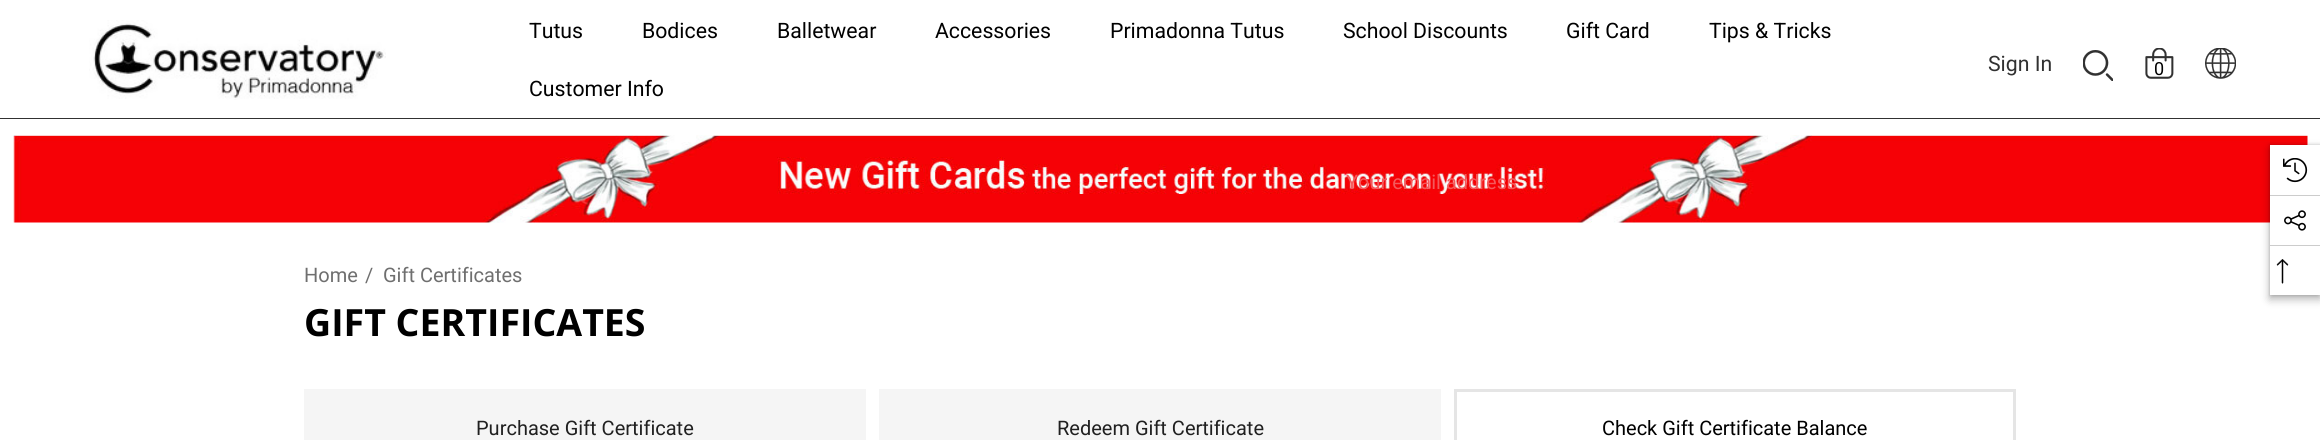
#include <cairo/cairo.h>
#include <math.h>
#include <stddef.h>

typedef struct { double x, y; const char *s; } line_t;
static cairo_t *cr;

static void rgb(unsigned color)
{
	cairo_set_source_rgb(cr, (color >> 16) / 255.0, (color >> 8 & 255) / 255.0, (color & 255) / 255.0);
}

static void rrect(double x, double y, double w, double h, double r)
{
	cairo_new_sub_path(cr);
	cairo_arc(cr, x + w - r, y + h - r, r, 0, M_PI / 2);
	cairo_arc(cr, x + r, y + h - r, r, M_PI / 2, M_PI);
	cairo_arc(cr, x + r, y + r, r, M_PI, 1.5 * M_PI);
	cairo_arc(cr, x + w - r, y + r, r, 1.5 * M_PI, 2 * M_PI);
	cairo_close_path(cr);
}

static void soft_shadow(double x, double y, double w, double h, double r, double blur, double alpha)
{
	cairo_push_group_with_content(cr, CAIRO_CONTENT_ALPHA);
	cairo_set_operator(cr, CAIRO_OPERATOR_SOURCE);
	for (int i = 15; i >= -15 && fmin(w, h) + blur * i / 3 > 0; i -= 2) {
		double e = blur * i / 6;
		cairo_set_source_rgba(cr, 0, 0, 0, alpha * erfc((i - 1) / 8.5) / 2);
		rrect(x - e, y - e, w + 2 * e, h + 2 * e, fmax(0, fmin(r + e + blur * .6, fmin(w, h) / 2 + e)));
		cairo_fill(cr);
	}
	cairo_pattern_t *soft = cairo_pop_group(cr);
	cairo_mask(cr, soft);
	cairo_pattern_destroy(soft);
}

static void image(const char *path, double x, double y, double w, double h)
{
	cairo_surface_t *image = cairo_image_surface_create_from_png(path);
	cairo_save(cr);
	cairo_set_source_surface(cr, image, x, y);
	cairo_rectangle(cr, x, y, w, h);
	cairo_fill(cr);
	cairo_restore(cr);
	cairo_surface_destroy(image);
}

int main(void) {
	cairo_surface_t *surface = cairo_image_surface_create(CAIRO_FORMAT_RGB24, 2320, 440);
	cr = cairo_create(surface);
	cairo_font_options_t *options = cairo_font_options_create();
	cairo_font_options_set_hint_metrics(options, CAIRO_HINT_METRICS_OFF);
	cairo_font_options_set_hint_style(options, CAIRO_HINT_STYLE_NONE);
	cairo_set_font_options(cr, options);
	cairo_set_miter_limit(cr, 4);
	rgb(0xffffff);
	cairo_paint(cr);
	rgb(0x313131);
	cairo_rectangle(cr, 0, 118, 2320, 1);
	cairo_fill(cr);
	image("img/1.png", 89, 20, 297, 80);
	image("img/2.png", 2083, 50, 30, 31);
	image("img/3.png", 2145, 48, 29, 31);
	image("img/4.png", 2205, 48, 31, 31);
	image("img/5.png", 13, 135, 2295, 88);
	rgb(0x000000);
	soft_shadow(2270, 149, 50, 150, 0, 4.5, 0.3);
	soft_shadow(2269, 144, 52, 152, 0, 1, 0.1);
	rgb(0xffffff);
	cairo_rectangle(cr, 2270, 145, 50, 150);
	cairo_fill(cr);
	image("img/6.png", 2283, 158, 25, 25);
	rgb(0xcccccc);
	cairo_rectangle(cr, 2270, 195, 50, 1);
	cairo_fill(cr);
	image("img/7.png", 2284, 210, 22, 21);
	cairo_rectangle(cr, 2270, 245, 50, 1);
	cairo_fill(cr);
	image("img/8.png", 2276, 259, 13, 25);
	rgb(0xf5f5f5);
	cairo_rectangle(cr, 304, 389, 562, 51);
	cairo_fill(cr);
	cairo_rectangle(cr, 879, 389, 562, 51);
	cairo_fill(cr);
	cairo_rectangle(cr, 1455.5, 390.5, 559, 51);
	rgb(0xe5e5e5);
	cairo_set_line_width(cr, 3);
	cairo_stroke(cr);
	cairo_select_font_face(cr, "Roboto", CAIRO_FONT_SLANT_NORMAL, CAIRO_FONT_WEIGHT_NORMAL);
	cairo_set_font_size(cr, 21.25);
	rgb(0x000000);
	{
		static const line_t items[] = {
			{529, 38, "Tutus"},
			{642, 38, "Bodices"},
			{777, 38, "Balletwear"},
			{935, 38, "Accessories"},
			{1110, 38, "Primadonna Tutus"},
			{1343, 38, "School Discounts"},
			{1566, 38, "Gift Card"},
			{1709, 38, "Tips & Tricks"},
			{529, 96, "Customer Info"},
		};
		for (size_t i = 0; i < sizeof items / sizeof *items; i++) {
			cairo_move_to(cr, items[i].x, items[i].y);
			cairo_show_text(cr, items[i].s);
		}
	}
	rgb(0x313131);
	cairo_move_to(cr, 1988, 71);
	cairo_show_text(cr, "Sign In");
	cairo_set_font_size(cr, 18);
	rgb(0x000000);
	cairo_move_to(cr, 2154, 75);
	cairo_show_text(cr, "0");
	cairo_set_font_size(cr, 20);
	rgb(0xf4595b);
	cairo_move_to(cr, 1346, 189);
	cairo_show_text(cr, "Your email address");
	rgb(0x6f6f6f);
	{
		static const line_t items[] = {
			{304, 282, "Home"},
			{365, 282, "/"},
			{383, 282, "Gift Certificates"},
		};
		for (size_t i = 0; i < sizeof items / sizeof *items; i++) {
			cairo_move_to(cr, items[i].x, items[i].y);
			cairo_show_text(cr, items[i].s);
		}
	}
	cairo_select_font_face(cr, "Open Sans", CAIRO_FONT_SLANT_NORMAL, CAIRO_FONT_WEIGHT_BOLD);
	cairo_set_font_size(cr, 37.5);
	rgb(0x000000);
	cairo_move_to(cr, 304, 336);
	cairo_show_text(cr, "GIFT CERTIFICATES");
	cairo_select_font_face(cr, "Roboto", CAIRO_FONT_SLANT_NORMAL, CAIRO_FONT_WEIGHT_NORMAL);
	cairo_set_font_size(cr, 20);
	rgb(0x202020);
	cairo_move_to(cr, 476, 435);
	cairo_show_text(cr, "Purchase Gift Certificate");
	cairo_move_to(cr, 1057, 435);
	cairo_show_text(cr, "Redeem Gift Certificate");
	rgb(0x000000);
	cairo_move_to(cr, 1602, 435);
	cairo_show_text(cr, "Check Gift Certificate Balance");
	cairo_surface_write_to_png(surface, "page.png");
	cairo_font_options_destroy(options);
	cairo_destroy(cr);
	cairo_surface_destroy(surface);
	return 0;
}
